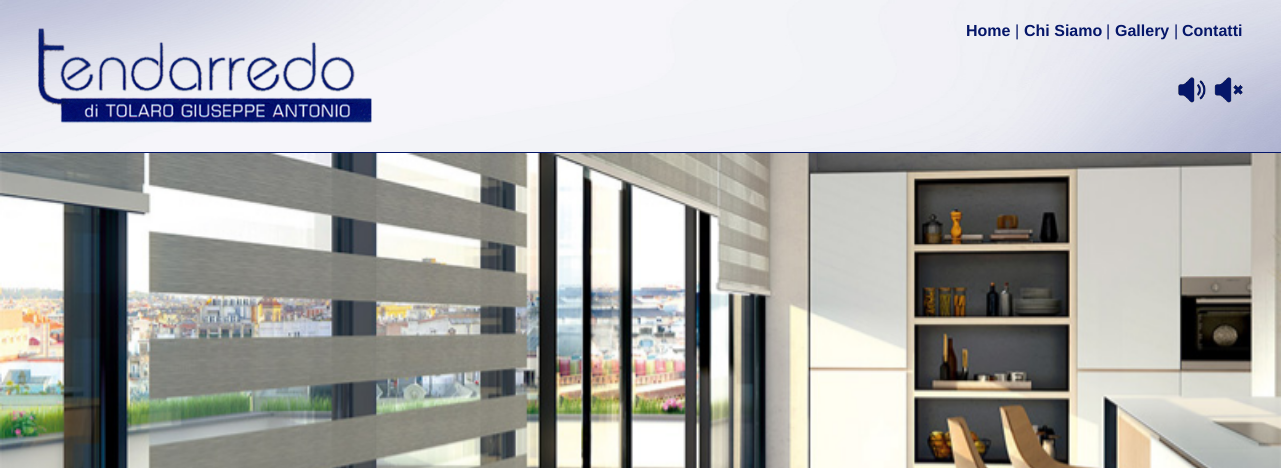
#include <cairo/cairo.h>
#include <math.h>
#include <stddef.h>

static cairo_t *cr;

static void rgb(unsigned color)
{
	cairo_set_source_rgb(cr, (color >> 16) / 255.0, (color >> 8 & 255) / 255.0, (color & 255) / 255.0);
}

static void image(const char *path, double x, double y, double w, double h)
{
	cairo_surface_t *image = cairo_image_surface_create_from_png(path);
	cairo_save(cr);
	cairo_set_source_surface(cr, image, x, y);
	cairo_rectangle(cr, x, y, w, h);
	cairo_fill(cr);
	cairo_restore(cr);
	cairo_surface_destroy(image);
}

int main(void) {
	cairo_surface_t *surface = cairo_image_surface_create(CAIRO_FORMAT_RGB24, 1281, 468);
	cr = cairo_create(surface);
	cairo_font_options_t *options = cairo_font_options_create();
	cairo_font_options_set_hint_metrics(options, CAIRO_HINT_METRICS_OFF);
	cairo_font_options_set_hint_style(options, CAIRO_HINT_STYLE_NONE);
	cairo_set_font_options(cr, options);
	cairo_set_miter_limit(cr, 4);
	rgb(0xffffff);
	cairo_paint(cr);
	image("img/1.png", 0, 0, 1281, 152);
	image("img/2.png", 38, 28, 334, 96);
	image("img/3.png", 1178, 77, 28, 26);
	image("img/4.png", 1214, 77, 29, 26);
	rgb(0x051669);
	cairo_rectangle(cr, 0, 152, 1281, 1);
	cairo_fill(cr);
	image("img/5.png", 0, 153, 1281, 315);
	cairo_select_font_face(cr, "Liberation Sans", CAIRO_FONT_SLANT_NORMAL, CAIRO_FONT_WEIGHT_BOLD);
	cairo_set_font_size(cr, 16);
	cairo_move_to(cr, 966, 36);
	cairo_show_text(cr, "Home");
	cairo_select_font_face(cr, "Liberation Sans", CAIRO_FONT_SLANT_NORMAL, CAIRO_FONT_WEIGHT_NORMAL);
	cairo_move_to(cr, 1015, 36);
	cairo_show_text(cr, "|");
	cairo_select_font_face(cr, "Liberation Sans", CAIRO_FONT_SLANT_NORMAL, CAIRO_FONT_WEIGHT_BOLD);
	cairo_move_to(cr, 1024, 36);
	cairo_show_text(cr, "Chi Siamo");
	cairo_select_font_face(cr, "Liberation Sans", CAIRO_FONT_SLANT_NORMAL, CAIRO_FONT_WEIGHT_NORMAL);
	cairo_move_to(cr, 1106, 36);
	cairo_show_text(cr, "|");
	cairo_select_font_face(cr, "Liberation Sans", CAIRO_FONT_SLANT_NORMAL, CAIRO_FONT_WEIGHT_BOLD);
	cairo_move_to(cr, 1115, 36);
	cairo_show_text(cr, "Gallery");
	cairo_select_font_face(cr, "Liberation Sans", CAIRO_FONT_SLANT_NORMAL, CAIRO_FONT_WEIGHT_NORMAL);
	cairo_move_to(cr, 1174, 36);
	cairo_show_text(cr, "|");
	cairo_select_font_face(cr, "Liberation Sans", CAIRO_FONT_SLANT_NORMAL, CAIRO_FONT_WEIGHT_BOLD);
	cairo_move_to(cr, 1182, 36);
	cairo_show_text(cr, "Contatti");
	cairo_surface_write_to_png(surface, "page.png");
	cairo_font_options_destroy(options);
	cairo_destroy(cr);
	cairo_surface_destroy(surface);
	return 0;
}
